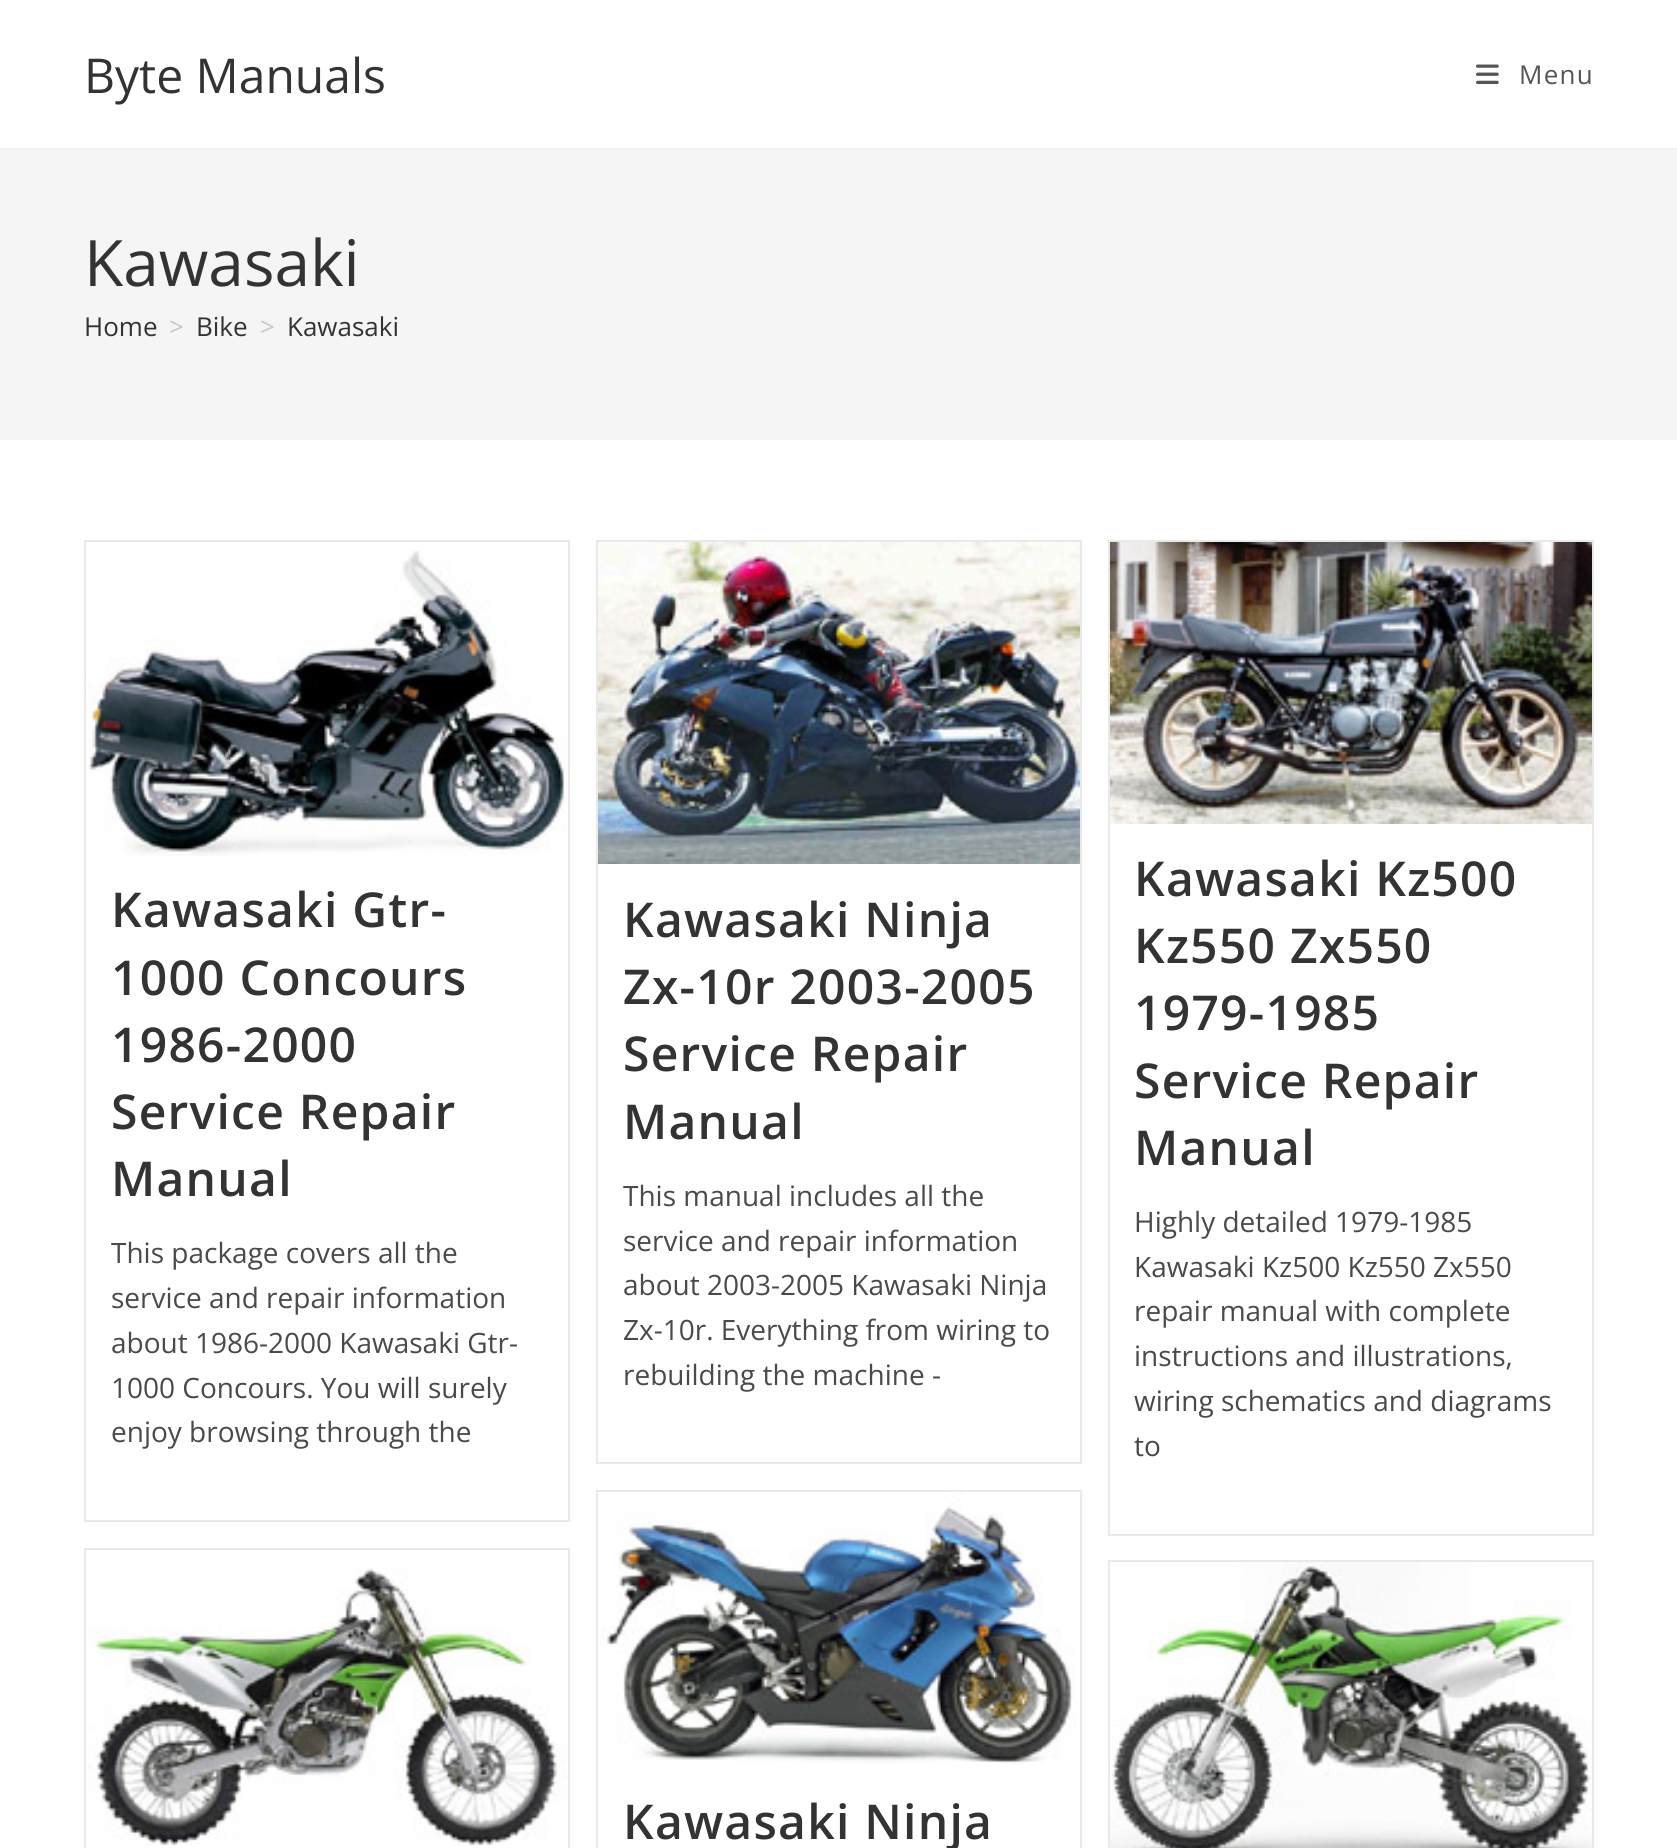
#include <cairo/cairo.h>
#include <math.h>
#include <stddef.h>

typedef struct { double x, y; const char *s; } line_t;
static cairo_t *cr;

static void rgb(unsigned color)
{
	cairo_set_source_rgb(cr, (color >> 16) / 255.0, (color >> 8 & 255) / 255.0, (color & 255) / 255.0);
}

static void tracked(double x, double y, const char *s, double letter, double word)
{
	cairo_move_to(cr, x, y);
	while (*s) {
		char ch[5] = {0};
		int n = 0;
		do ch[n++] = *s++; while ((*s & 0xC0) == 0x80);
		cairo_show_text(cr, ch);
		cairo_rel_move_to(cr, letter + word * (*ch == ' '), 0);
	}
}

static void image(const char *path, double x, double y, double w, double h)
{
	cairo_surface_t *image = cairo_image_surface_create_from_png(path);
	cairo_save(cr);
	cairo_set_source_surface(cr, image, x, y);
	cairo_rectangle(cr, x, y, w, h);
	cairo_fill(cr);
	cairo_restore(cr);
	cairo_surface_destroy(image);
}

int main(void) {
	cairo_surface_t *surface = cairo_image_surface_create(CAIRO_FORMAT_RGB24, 1677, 1848);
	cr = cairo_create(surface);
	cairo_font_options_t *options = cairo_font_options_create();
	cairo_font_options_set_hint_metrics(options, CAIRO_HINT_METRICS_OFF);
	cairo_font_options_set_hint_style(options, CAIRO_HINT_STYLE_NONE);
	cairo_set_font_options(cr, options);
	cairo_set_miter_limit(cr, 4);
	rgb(0xffffff);
	cairo_paint(cr);
	rgb(0xf1f1f1);
	cairo_rectangle(cr, 0, 148, 1677, 2);
	cairo_fill(cr);
	image("img/1.png", 1476, 64, 23, 20);
	rgb(0xf5f5f5);
	cairo_rectangle(cr, 0, 150, 1677, 290);
	cairo_fill(cr);
	cairo_rectangle(cr, 85, 541, 484, 980);
	rgb(0xe9e9e9);
	cairo_stroke(cr);
	image("img/2.png", 86, 550, 482, 306);
	cairo_rectangle(cr, 597, 541, 484, 922);
	cairo_stroke(cr);
	image("img/3.png", 598, 542, 482, 322);
	cairo_rectangle(cr, 1109, 541, 484, 994);
	cairo_stroke(cr);
	image("img/4.png", 1110, 542, 482, 282);
	cairo_rectangle(cr, 85, 1549, 484, 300);
	cairo_stroke(cr);
	image("img/5.png", 86, 1568, 482, 278);
	cairo_rectangle(cr, 597, 1491, 484, 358);
	cairo_stroke(cr);
	image("img/6.png", 598, 1492, 479, 272);
	cairo_rectangle(cr, 1109, 1561, 484, 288);
	cairo_stroke(cr);
	image("img/7.png", 1110, 1562, 482, 286);
	cairo_select_font_face(cr, "Open Sans", CAIRO_FONT_SLANT_NORMAL, CAIRO_FONT_WEIGHT_NORMAL);
	cairo_set_font_size(cr, 48);
	rgb(0x333333);
	cairo_move_to(cr, 84, 93);
	cairo_show_text(cr, "Byte Manuals");
	cairo_set_font_size(cr, 26);
	rgb(0x555555);
	tracked(1519, 84, "Menu", 1.25, 0);
	cairo_set_font_size(cr, 64);
	rgb(0x333333);
	cairo_move_to(cr, 84, 286);
	cairo_show_text(cr, "Kawasaki");
	cairo_set_font_size(cr, 26);
	cairo_move_to(cr, 84, 336);
	cairo_show_text(cr, "Home");
	rgb(0xc6c6c6);
	cairo_move_to(cr, 169, 336);
	cairo_show_text(cr, ">");
	rgb(0x333333);
	cairo_move_to(cr, 196, 336);
	cairo_show_text(cr, "Bike");
	rgb(0xc6c6c6);
	cairo_move_to(cr, 260, 336);
	cairo_show_text(cr, ">");
	rgb(0x333333);
	cairo_move_to(cr, 287, 336);
	cairo_show_text(cr, "Kawasaki");
	cairo_select_font_face(cr, "Open Sans SemiBold", CAIRO_FONT_SLANT_NORMAL, CAIRO_FONT_WEIGHT_NORMAL);
	cairo_set_font_size(cr, 48);
	{
		static const line_t items[] = {
			{111, 927, "Kawasaki Gtr-"},
			{111, 995, "1000 Concours"},
			{111, 1062, "1986-2000"},
			{111, 1129, "Service Repair"},
			{111, 1196, "Manual"},
		};
		for (size_t i = 0; i < sizeof items / sizeof *items; i++) {
			tracked(items[i].x, items[i].y, items[i].s, 1.25, 0);
		}
	}
	cairo_select_font_face(cr, "Open Sans", CAIRO_FONT_SLANT_NORMAL, CAIRO_FONT_WEIGHT_NORMAL);
	cairo_set_font_size(cr, 28);
	rgb(0x4a4a4a);
	{
		static const line_t items[] = {
			{111, 1263, "This package covers all the"},
			{111, 1308, "service and repair information"},
			{111, 1353, "about 1986-2000 Kawasaki Gtr-"},
			{111, 1398, "1000 Concours. You will surely"},
			{111, 1442, "enjoy browsing through the"},
		};
		for (size_t i = 0; i < sizeof items / sizeof *items; i++) {
			cairo_move_to(cr, items[i].x, items[i].y);
			cairo_show_text(cr, items[i].s);
		}
	}
	cairo_select_font_face(cr, "Open Sans SemiBold", CAIRO_FONT_SLANT_NORMAL, CAIRO_FONT_WEIGHT_NORMAL);
	cairo_set_font_size(cr, 48);
	rgb(0x333333);
	{
		static const line_t items[] = {
			{623, 937, "Kawasaki Ninja"},
			{623, 1004, "Zx-10r 2003-2005"},
			{623, 1071, "Service Repair"},
			{623, 1139, "Manual"},
		};
		for (size_t i = 0; i < sizeof items / sizeof *items; i++) {
			tracked(items[i].x, items[i].y, items[i].s, 1.25, 0);
		}
	}
	cairo_select_font_face(cr, "Open Sans", CAIRO_FONT_SLANT_NORMAL, CAIRO_FONT_WEIGHT_NORMAL);
	cairo_set_font_size(cr, 28);
	rgb(0x4a4a4a);
	{
		static const line_t items[] = {
			{623, 1206, "This manual includes all the"},
			{623, 1251, "service and repair information"},
			{623, 1295, "about 2003-2005 Kawasaki Ninja"},
			{623, 1340, "Zx-10r. Everything from wiring to"},
			{623, 1385, "rebuilding the machine -"},
		};
		for (size_t i = 0; i < sizeof items / sizeof *items; i++) {
			cairo_move_to(cr, items[i].x, items[i].y);
			cairo_show_text(cr, items[i].s);
		}
	}
	cairo_select_font_face(cr, "Open Sans SemiBold", CAIRO_FONT_SLANT_NORMAL, CAIRO_FONT_WEIGHT_NORMAL);
	cairo_set_font_size(cr, 48);
	rgb(0x333333);
	{
		static const line_t items[] = {
			{1134, 896, "Kawasaki Kz500"},
			{1134, 963, "Kz550 Zx550"},
			{1134, 1030, "1979-1985"},
			{1134, 1098, "Service Repair"},
			{1134, 1165, "Manual"},
		};
		for (size_t i = 0; i < sizeof items / sizeof *items; i++) {
			tracked(items[i].x, items[i].y, items[i].s, 1.25, 0);
		}
	}
	cairo_select_font_face(cr, "Open Sans", CAIRO_FONT_SLANT_NORMAL, CAIRO_FONT_WEIGHT_NORMAL);
	cairo_set_font_size(cr, 28);
	rgb(0x4a4a4a);
	{
		static const line_t items[] = {
			{1134, 1232, "Highly detailed 1979-1985"},
			{1134, 1277, "Kawasaki Kz500 Kz550 Zx550"},
			{1134, 1321, "repair manual with complete"},
			{1134, 1366, "instructions and illustrations,"},
			{1134, 1411, "wiring schematics and diagrams"},
			{1134, 1456, "to"},
		};
		for (size_t i = 0; i < sizeof items / sizeof *items; i++) {
			cairo_move_to(cr, items[i].x, items[i].y);
			cairo_show_text(cr, items[i].s);
		}
	}
	cairo_select_font_face(cr, "Open Sans SemiBold", CAIRO_FONT_SLANT_NORMAL, CAIRO_FONT_WEIGHT_NORMAL);
	cairo_set_font_size(cr, 48);
	rgb(0x333333);
	tracked(623, 1839, "Kawasaki Ninja", 1.25, 0);
	cairo_surface_write_to_png(surface, "page.png");
	cairo_font_options_destroy(options);
	cairo_destroy(cr);
	cairo_surface_destroy(surface);
	return 0;
}
